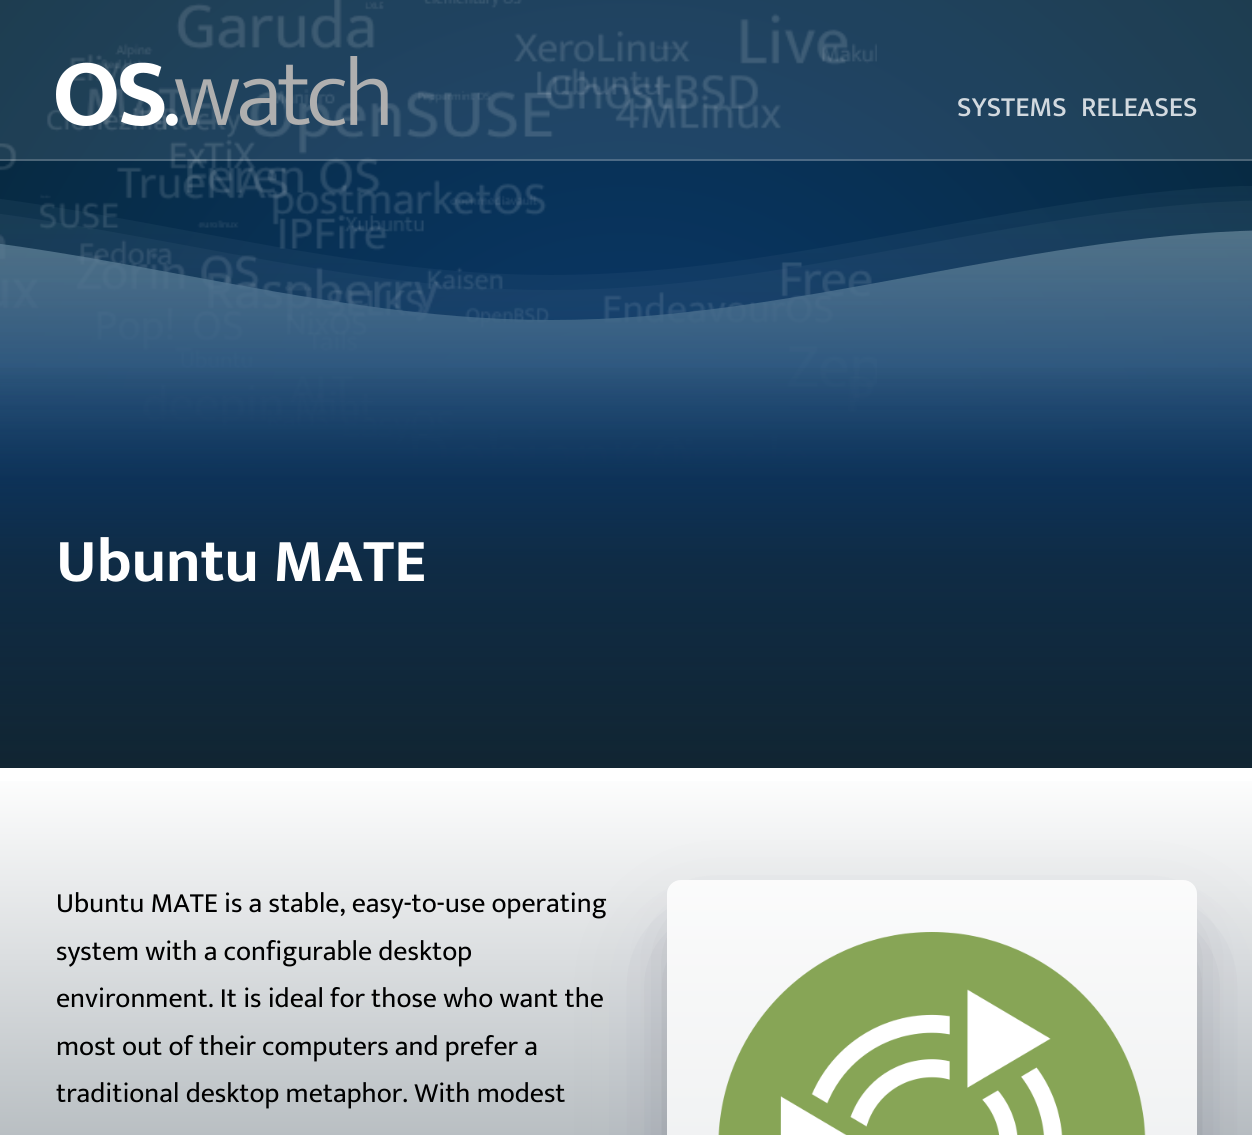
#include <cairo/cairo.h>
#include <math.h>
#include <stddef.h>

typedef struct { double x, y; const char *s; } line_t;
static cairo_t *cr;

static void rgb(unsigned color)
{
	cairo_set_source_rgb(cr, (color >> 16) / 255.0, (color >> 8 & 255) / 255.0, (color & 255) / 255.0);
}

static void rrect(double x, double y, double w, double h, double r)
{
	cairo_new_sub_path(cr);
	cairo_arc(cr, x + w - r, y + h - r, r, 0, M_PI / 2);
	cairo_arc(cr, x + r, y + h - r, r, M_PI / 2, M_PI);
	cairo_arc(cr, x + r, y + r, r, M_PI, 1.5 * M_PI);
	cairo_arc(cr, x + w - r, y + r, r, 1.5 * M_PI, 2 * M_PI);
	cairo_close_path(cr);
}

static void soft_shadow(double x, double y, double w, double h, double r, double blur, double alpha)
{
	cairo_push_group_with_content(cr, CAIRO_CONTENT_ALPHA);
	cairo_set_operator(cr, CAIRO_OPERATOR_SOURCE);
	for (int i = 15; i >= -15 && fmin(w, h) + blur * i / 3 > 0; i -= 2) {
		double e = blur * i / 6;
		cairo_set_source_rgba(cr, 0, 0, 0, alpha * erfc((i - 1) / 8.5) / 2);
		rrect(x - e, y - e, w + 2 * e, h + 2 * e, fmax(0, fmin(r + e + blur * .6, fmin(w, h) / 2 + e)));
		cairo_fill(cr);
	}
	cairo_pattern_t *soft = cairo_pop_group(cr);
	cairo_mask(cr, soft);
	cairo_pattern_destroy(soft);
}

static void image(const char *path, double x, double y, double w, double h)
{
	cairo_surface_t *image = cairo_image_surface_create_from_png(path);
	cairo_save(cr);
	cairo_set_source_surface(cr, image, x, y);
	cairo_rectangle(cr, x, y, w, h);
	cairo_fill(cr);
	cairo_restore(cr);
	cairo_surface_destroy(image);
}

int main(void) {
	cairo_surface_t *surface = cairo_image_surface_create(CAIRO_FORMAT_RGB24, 1252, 1135);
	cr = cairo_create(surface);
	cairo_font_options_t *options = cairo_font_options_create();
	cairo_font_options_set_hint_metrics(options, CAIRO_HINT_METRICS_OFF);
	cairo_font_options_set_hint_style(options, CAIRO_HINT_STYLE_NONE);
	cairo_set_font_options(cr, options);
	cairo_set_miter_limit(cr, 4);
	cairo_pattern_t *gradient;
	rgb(0xffffff);
	cairo_paint(cr);
	gradient = cairo_pattern_create_radial(627, 525, 0, 627, 525, 817);
	cairo_pattern_add_color_stop_rgba(gradient, 0, 0.039, 0.227, 0.431, 1);
	cairo_pattern_add_color_stop_rgba(gradient, 1, 0.024, 0.157, 0.239, 1);
	cairo_set_source(cr, gradient);
	cairo_pattern_destroy(gradient);
	cairo_rectangle(cr, 0, 0, 1252, 468);
	cairo_fill(cr);
	image("img/1.png", 0, 0, 877, 468);
	image("img/2.png", 0, 186, 1252, 339);
	gradient = cairo_pattern_create_linear(627, 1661, 627, 525);
	cairo_pattern_add_color_stop_rgba(gradient, 0, 0, 0, 0, 1);
	cairo_pattern_add_color_stop_rgba(gradient, 0.6, 0.039, 0.231, 0.447, 1);
	cairo_pattern_add_color_stop_rgba(gradient, 1, 0.039, 0.231, 0.447, 1);
	cairo_set_source(cr, gradient);
	cairo_pattern_destroy(gradient);
	cairo_rectangle(cr, 0, 525, 1252, 239);
	cairo_fill(cr);
	cairo_set_source_rgba(cr, 1, 1, 1, 0.1);
	cairo_rectangle(cr, 0, 0, 1252, 161);
	cairo_fill(cr);
	cairo_set_source_rgba(cr, 1, 1, 1, 0.2);
	cairo_rectangle(cr, 0, 159, 1252, 2);
	cairo_fill(cr);
	image("img/3.png", 56, 56, 332, 70);
	gradient = cairo_pattern_create_linear(627, 768, 627, 357);
	cairo_pattern_add_color_stop_rgba(gradient, 0, 0.067, 0.145, 0.196, 1);
	cairo_pattern_add_color_stop_rgba(gradient, 0.5, 0.067, 0.145, 0.196, 0.7);
	cairo_pattern_add_color_stop_rgba(gradient, 1, 0.067, 0.145, 0.196, 0);
	cairo_set_source(cr, gradient);
	cairo_pattern_destroy(gradient);
	cairo_rectangle(cr, 0, 368, 1252, 400);
	cairo_fill(cr);
	gradient = cairo_pattern_create_linear(627, 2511, 627, 768);
	cairo_pattern_add_color_stop_rgba(gradient, 0, 0.067, 0.145, 0.196, 1);
	cairo_pattern_add_color_stop_rgba(gradient, 0.5, 0.349, 0.404, 0.439, 1);
	cairo_pattern_add_color_stop_rgba(gradient, 1, 1, 1, 1, 1);
	cairo_set_source(cr, gradient);
	cairo_pattern_destroy(gradient);
	cairo_rectangle(cr, 0, 781, 1252, 354);
	cairo_fill(cr);
	cairo_save(cr);
	cairo_set_fill_rule(cr, CAIRO_FILL_RULE_EVEN_ODD);
	cairo_new_path(cr);
	cairo_move_to(cr, 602, 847);
	cairo_line_to(cr, 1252, 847);
	cairo_line_to(cr, 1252, 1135);
	cairo_line_to(cr, 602, 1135);
	cairo_close_path(cr);
	cairo_move_to(cr, 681, 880);
	cairo_line_to(cr, 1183, 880);
	cairo_curve_to(cr, 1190.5, 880, 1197, 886.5, 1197, 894);
	cairo_line_to(cr, 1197, 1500);
	cairo_curve_to(cr, 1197, 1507.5, 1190.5, 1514, 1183, 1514);
	cairo_line_to(cr, 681, 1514);
	cairo_curve_to(cr, 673.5, 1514, 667, 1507.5, 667, 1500);
	cairo_line_to(cr, 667, 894);
	cairo_curve_to(cr, 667, 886.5, 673.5, 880, 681, 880);
	cairo_close_path(cr);
	cairo_clip(cr);
	rgb(0x000000);
	soft_shadow(698, 943, 468, 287, 0, 31.5, 0.3);
	cairo_restore(cr);
	cairo_save(cr);
	cairo_set_fill_rule(cr, CAIRO_FILL_RULE_EVEN_ODD);
	cairo_new_path(cr);
	cairo_move_to(cr, 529, 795);
	cairo_line_to(cr, 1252, 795);
	cairo_line_to(cr, 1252, 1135);
	cairo_line_to(cr, 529, 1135);
	cairo_close_path(cr);
	cairo_move_to(cr, 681, 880);
	cairo_line_to(cr, 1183, 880);
	cairo_curve_to(cr, 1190.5, 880, 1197, 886.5, 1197, 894);
	cairo_line_to(cr, 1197, 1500);
	cairo_curve_to(cr, 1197, 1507.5, 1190.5, 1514, 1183, 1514);
	cairo_line_to(cr, 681, 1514);
	cairo_curve_to(cr, 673.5, 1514, 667, 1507.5, 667, 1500);
	cairo_line_to(cr, 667, 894);
	cairo_curve_to(cr, 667, 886.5, 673.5, 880, 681, 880);
	cairo_close_path(cr);
	cairo_clip(cr);
	rgb(0x32325d);
	soft_shadow(688, 954, 488, 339, 0, 52.5, 0.25);
	cairo_restore(cr);
	cairo_set_source_rgba(cr, 1, 1, 1, 0.8);
	rrect(667, 880, 530, 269, 14);
	cairo_fill(cr);
	image("img/4.png", 718, 932, 428, 203);
	cairo_select_font_face(cr, "Mukta Medium", CAIRO_FONT_SLANT_NORMAL, CAIRO_FONT_WEIGHT_NORMAL);
	cairo_set_font_size(cr, 28);
	rgb(0xd2d9df);
	cairo_move_to(cr, 957, 116);
	cairo_show_text(cr, "SYSTEMS");
	cairo_move_to(cr, 1081, 116);
	cairo_show_text(cr, "RELEASES");
	cairo_select_font_face(cr, "Mukta", CAIRO_FONT_SLANT_NORMAL, CAIRO_FONT_WEIGHT_BOLD);
	cairo_set_font_size(cr, 61.5);
	rgb(0xffffff);
	cairo_move_to(cr, 56, 581);
	cairo_show_text(cr, "Ubuntu MATE");
	cairo_select_font_face(cr, "Mukta", CAIRO_FONT_SLANT_NORMAL, CAIRO_FONT_WEIGHT_NORMAL);
	cairo_set_font_size(cr, 28);
	rgb(0x000000);
	{
		static const line_t items[] = {
			{56, 912, "Ubuntu MATE is a stable, easy-to-use operating"},
			{56, 960, "system with a configurable desktop"},
			{56, 1007, "environment. It is ideal for those who want the"},
			{56, 1055, "most out of their computers and prefer a"},
			{56, 1102, "traditional desktop metaphor. With modest"},
		};
		for (size_t i = 0; i < sizeof items / sizeof *items; i++) {
			cairo_move_to(cr, items[i].x, items[i].y);
			cairo_show_text(cr, items[i].s);
		}
	}
	cairo_surface_write_to_png(surface, "page.png");
	cairo_font_options_destroy(options);
	cairo_destroy(cr);
	cairo_surface_destroy(surface);
	return 0;
}
